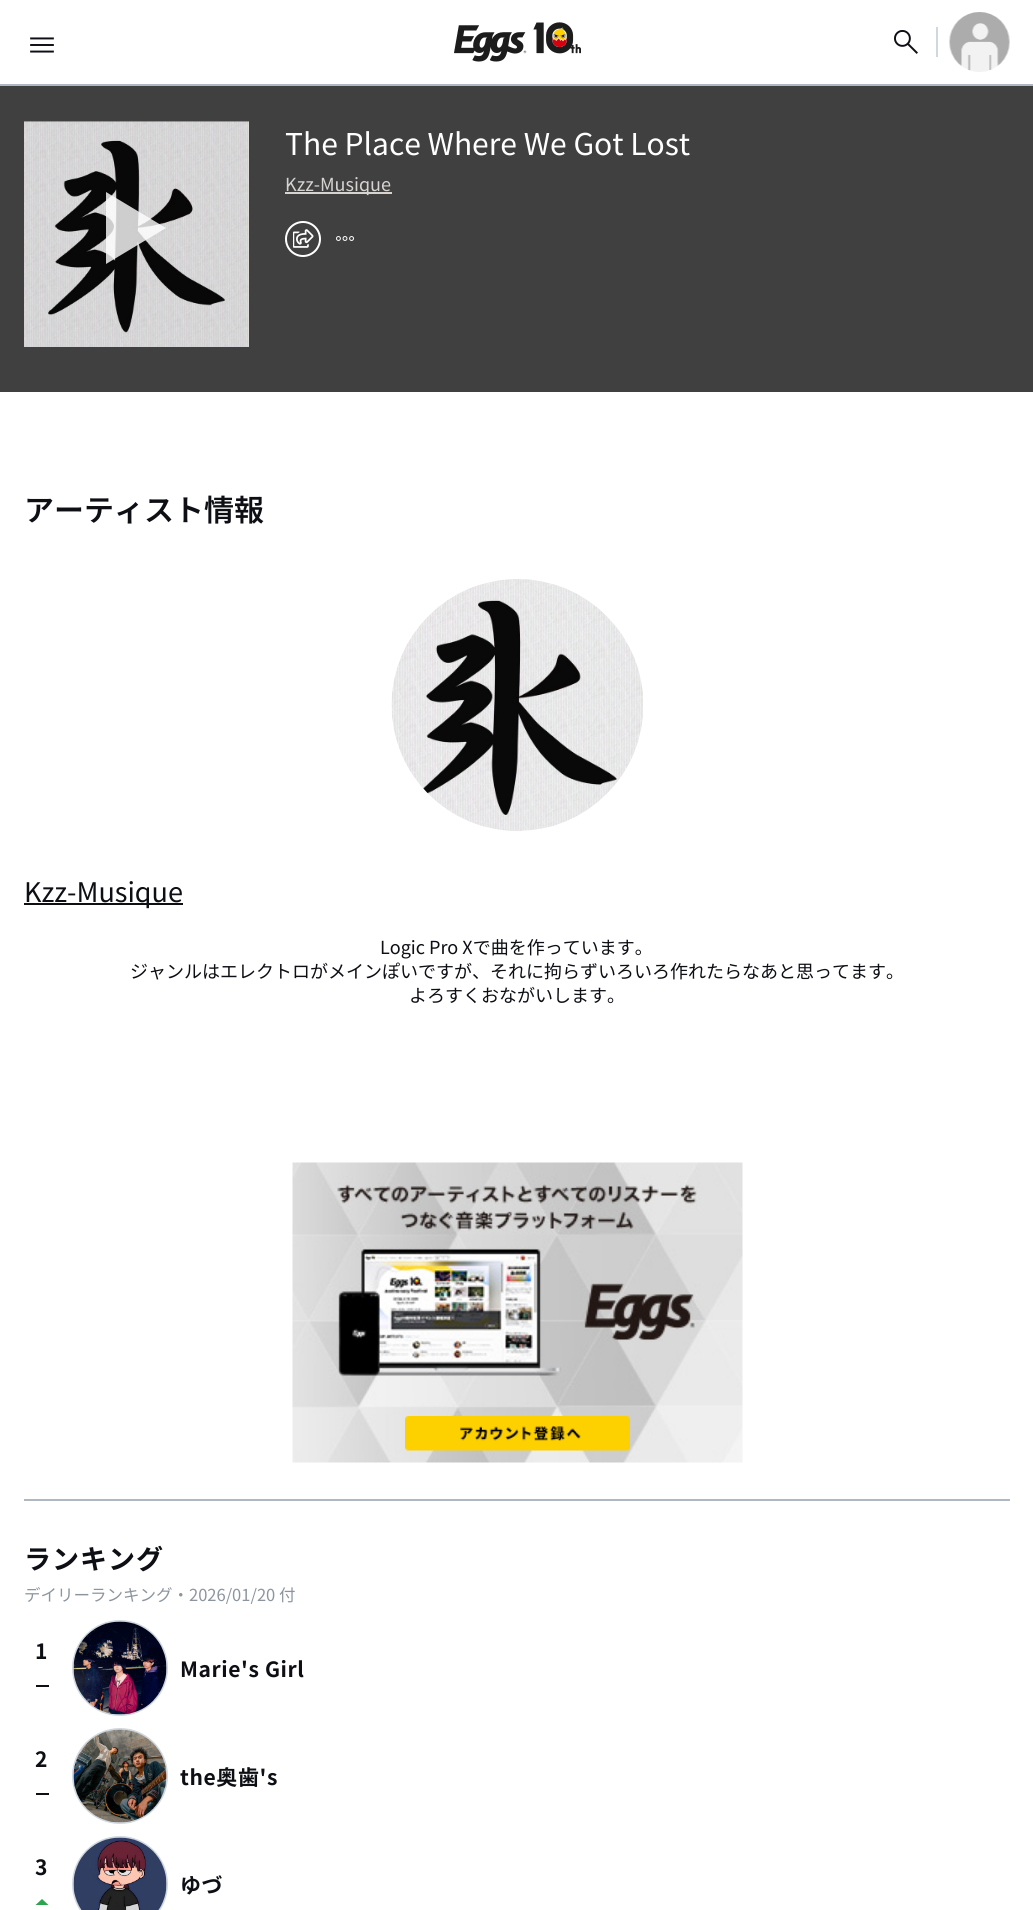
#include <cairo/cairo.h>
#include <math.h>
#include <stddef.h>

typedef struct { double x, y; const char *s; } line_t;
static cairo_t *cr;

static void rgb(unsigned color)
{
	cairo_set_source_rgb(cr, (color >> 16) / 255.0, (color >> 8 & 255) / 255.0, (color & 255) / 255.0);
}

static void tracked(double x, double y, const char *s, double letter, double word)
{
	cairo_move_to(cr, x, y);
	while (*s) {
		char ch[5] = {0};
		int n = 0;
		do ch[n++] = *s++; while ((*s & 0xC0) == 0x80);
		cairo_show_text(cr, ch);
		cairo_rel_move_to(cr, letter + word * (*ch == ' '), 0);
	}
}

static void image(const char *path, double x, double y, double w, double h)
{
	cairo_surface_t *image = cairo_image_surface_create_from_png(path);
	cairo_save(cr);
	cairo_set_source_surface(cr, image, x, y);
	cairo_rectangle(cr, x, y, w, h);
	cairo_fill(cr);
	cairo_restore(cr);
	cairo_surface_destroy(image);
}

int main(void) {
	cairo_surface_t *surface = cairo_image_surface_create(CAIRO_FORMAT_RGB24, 1033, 1910);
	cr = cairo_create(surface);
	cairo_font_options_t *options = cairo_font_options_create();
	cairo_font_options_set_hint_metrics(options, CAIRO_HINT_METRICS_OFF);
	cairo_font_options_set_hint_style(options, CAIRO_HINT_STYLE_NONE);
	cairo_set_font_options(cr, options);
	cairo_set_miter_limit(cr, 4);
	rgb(0xffffff);
	cairo_paint(cr);
	rgb(0xafb8c1);
	cairo_rectangle(cr, 0, 84, 1033, 2);
	cairo_fill(cr);
	image("img/1.png", 30, 37, 24, 16);
	image("img/2.png", 454, 22, 127, 40);
	image("img/3.png", 894, 30, 24, 24);
	rgb(0xd0d7de);
	cairo_rectangle(cr, 936, 27, 2, 30);
	cairo_fill(cr);
	image("img/4.png", 949, 12, 61, 60);
	rgb(0x404040);
	cairo_rectangle(cr, 0, 86, 1033, 306);
	cairo_fill(cr);
	rgb(0xd3d5d8);
	cairo_rectangle(cr, 24, 346, 225, 1);
	cairo_fill(cr);
	image("img/5.png", 24, 121, 225, 226);
	cairo_set_source_rgba(cr, 1, 1, 1, 0.8);
	cairo_new_path(cr);
	cairo_move_to(cr, 106, 264);
	cairo_line_to(cr, 166, 228);
	cairo_line_to(cr, 106, 192);
	cairo_close_path(cr);
	cairo_fill(cr);
	rgb(0xd6d3d1);
	cairo_rectangle(cr, 285, 192, 107, 2);
	cairo_fill(cr);
	cairo_arc(cr, 303, 239, 17, 0, 2 * M_PI);
	rgb(0xffffff);
	cairo_stroke(cr);
	image("img/6.png", 293, 229, 21, 19);
	image("img/7.png", 336, 236, 18, 5);
	image("img/8.png", 391, 579, 252, 252);
	rgb(0x0d0f14);
	cairo_rectangle(cr, 24, 903, 159, 2);
	cairo_fill(cr);
	rgb(0xafb8c1);
	cairo_rectangle(cr, 24, 1499, 986, 2);
	cairo_fill(cr);
	image("img/9.png", 292, 1162, 451, 301);
	image("img/10.png", 405, 1416, 225, 35);
	rgb(0x0d0f14);
	cairo_rectangle(cr, 36, 1685, 13, 2);
	cairo_fill(cr);
	cairo_arc(cr, 120, 1668, 47, 0, 2 * M_PI);
	rgb(0xd0d7de);
	cairo_stroke(cr);
	image("img/11.png", 73, 1621, 94, 94);
	rgb(0x0d0f14);
	cairo_rectangle(cr, 36, 1793, 13, 2);
	cairo_fill(cr);
	cairo_arc(cr, 120, 1776, 47, 0, 2 * M_PI);
	rgb(0xd0d7de);
	cairo_stroke(cr);
	image("img/12.png", 73, 1729, 94, 94);
	rgb(0x2da44e);
	cairo_new_path(cr);
	cairo_move_to(cr, 35.5, 1905);
	cairo_line_to(cr, 42, 1899);
	cairo_line_to(cr, 48.5, 1905);
	cairo_close_path(cr);
	cairo_fill(cr);
	cairo_arc(cr, 120, 1884, 47, 0, 2 * M_PI);
	rgb(0xd0d7de);
	cairo_stroke(cr);
	image("img/13.png", 73, 1837, 94, 73);
	cairo_select_font_face(cr, "Noto Sans JP", CAIRO_FONT_SLANT_NORMAL, CAIRO_FONT_WEIGHT_NORMAL);
	cairo_set_font_size(cr, 30);
	rgb(0xffffff);
	cairo_move_to(cr, 285, 155);
	cairo_show_text(cr, "The Place Where We Got Lost");
	cairo_set_font_size(cr, 18);
	rgb(0xd6d3d1);
	cairo_move_to(cr, 285, 191);
	cairo_show_text(cr, "Kzz-Musique");
	cairo_select_font_face(cr, "Noto Sans JP SemiBold", CAIRO_FONT_SLANT_NORMAL, CAIRO_FONT_WEIGHT_NORMAL);
	cairo_set_font_size(cr, 30);
	rgb(0x0d0f14);
	cairo_move_to(cr, 24, 521);
	cairo_show_text(cr, "アーティスト情報");
	cairo_select_font_face(cr, "Noto Sans JP", CAIRO_FONT_SLANT_NORMAL, CAIRO_FONT_WEIGHT_NORMAL);
	cairo_set_font_size(cr, 27);
	cairo_move_to(cr, 24, 902);
	cairo_show_text(cr, "Kzz-Musique");
	cairo_set_font_size(cr, 18);
	{
		static const line_t items[] = {
			{380, 954, "Logic Pro Xで曲を作っています。"},
			{130, 978, "ジャンルはエレクトロがメインぽいですが、それに拘らずいろいろ作れたらなあと思ってます。"},
			{409, 1002, "よろすくおながいします。"},
		};
		for (size_t i = 0; i < sizeof items / sizeof *items; i++) {
			cairo_move_to(cr, items[i].x, items[i].y);
			cairo_show_text(cr, items[i].s);
		}
	}
	cairo_select_font_face(cr, "Noto Sans JP", CAIRO_FONT_SLANT_NORMAL, CAIRO_FONT_WEIGHT_BOLD);
	cairo_set_font_size(cr, 27);
	tracked(24, 1569, "ランキング", 1, 0);
	cairo_select_font_face(cr, "Noto Sans JP", CAIRO_FONT_SLANT_NORMAL, CAIRO_FONT_WEIGHT_NORMAL);
	cairo_set_font_size(cr, 16.5);
	rgb(0x8c959f);
	cairo_move_to(cr, 24, 1601);
	cairo_show_text(cr, "デイリーランキング・2026/01/20 付");
	cairo_select_font_face(cr, "Noto Sans JP", CAIRO_FONT_SLANT_NORMAL, CAIRO_FONT_WEIGHT_BOLD);
	cairo_set_font_size(cr, 21);
	rgb(0x0d0f14);
	{
		static const line_t items[] = {
			{35, 1659, "1"},
			{180, 1677, "Marie's Girl"},
			{35, 1767, "2"},
			{180, 1785, "the奥歯's"},
			{35, 1875, "3"},
			{180, 1893, "ゆづ"},
		};
		for (size_t i = 0; i < sizeof items / sizeof *items; i++) {
			tracked(items[i].x, items[i].y, items[i].s, 0.6, 0);
		}
	}
	cairo_surface_write_to_png(surface, "page.png");
	cairo_font_options_destroy(options);
	cairo_destroy(cr);
	cairo_surface_destroy(surface);
	return 0;
}
